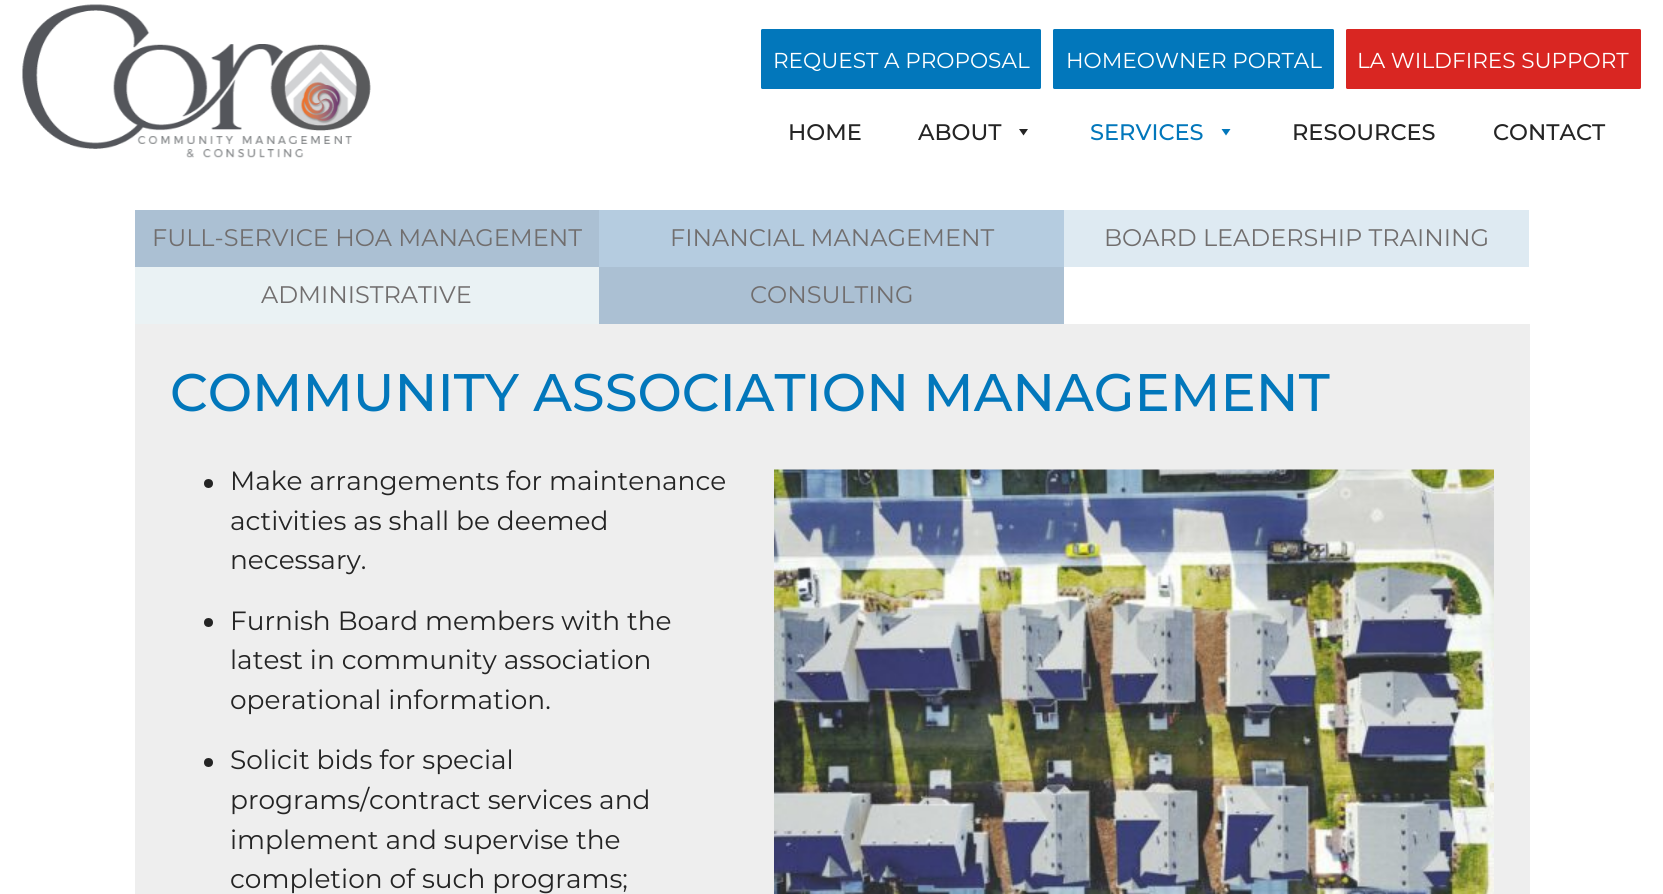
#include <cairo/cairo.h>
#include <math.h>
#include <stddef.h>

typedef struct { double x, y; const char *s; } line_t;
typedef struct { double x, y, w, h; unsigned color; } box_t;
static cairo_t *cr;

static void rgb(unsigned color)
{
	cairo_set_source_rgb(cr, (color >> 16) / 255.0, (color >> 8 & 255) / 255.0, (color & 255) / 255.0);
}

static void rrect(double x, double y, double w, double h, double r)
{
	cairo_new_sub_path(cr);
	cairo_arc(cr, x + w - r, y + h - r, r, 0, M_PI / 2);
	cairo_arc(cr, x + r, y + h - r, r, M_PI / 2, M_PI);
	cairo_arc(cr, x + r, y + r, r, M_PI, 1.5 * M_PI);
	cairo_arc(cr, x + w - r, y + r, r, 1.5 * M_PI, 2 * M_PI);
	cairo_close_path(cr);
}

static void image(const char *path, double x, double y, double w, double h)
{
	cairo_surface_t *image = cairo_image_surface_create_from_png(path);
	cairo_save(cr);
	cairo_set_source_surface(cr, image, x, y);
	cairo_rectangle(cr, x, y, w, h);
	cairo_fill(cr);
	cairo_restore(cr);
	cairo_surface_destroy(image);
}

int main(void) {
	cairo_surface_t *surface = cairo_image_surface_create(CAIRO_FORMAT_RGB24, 1663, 894);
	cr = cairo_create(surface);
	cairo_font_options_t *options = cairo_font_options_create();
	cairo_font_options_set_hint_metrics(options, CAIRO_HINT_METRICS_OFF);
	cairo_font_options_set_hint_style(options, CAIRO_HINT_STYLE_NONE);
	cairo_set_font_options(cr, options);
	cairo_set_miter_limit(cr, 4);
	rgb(0xffffff);
	cairo_paint(cr);
	image("img/1.png", 22, 4, 349, 154);
	rgb(0x0277bb);
	rrect(761, 29, 280, 60, 1.5);
	cairo_fill(cr);
	rrect(1053, 29, 281, 60, 1.5);
	cairo_fill(cr);
	rgb(0xd92622);
	rrect(1346, 29, 295, 60, 1.5);
	cairo_fill(cr);
	rgb(0x242424);
	cairo_new_path(cr);
	cairo_move_to(cr, 1028, 129);
	cairo_line_to(cr, 1023.5, 135.5);
	cairo_line_to(cr, 1019, 129);
	cairo_close_path(cr);
	cairo_fill(cr);
	rgb(0x0277bb);
	cairo_new_path(cr);
	cairo_move_to(cr, 1230.5, 129);
	cairo_line_to(cr, 1226, 135.5);
	cairo_line_to(cr, 1221.5, 129);
	cairo_close_path(cr);
	cairo_fill(cr);
	{
		static const box_t items[] = {
			{135, 210, 464, 57, 0xabc0d3},
			{599, 210, 465, 57, 0xb5cce0},
			{1064, 210, 465, 57, 0xdeeaf2},
			{135, 267, 464, 57, 0xeaf2f4},
			{599, 267, 465, 57, 0xabc0d3},
			{135, 324, 1395, 570, 0xeeeeee},
		};
		for (size_t i = 0; i < sizeof items / sizeof *items; i++) {
			rgb(items[i].color);
			cairo_rectangle(cr, items[i].x, items[i].y, items[i].w, items[i].h);
			cairo_fill(cr);
		}
	}
	rgb(0x242424);
	cairo_arc(cr, 208.5, 483.5, 4.5, 0, 2 * M_PI);
	cairo_fill(cr);
	cairo_arc(cr, 208.5, 622.5, 4.5, 0, 2 * M_PI);
	cairo_fill(cr);
	cairo_arc(cr, 208.5, 762.5, 4.5, 0, 2 * M_PI);
	cairo_fill(cr);
	image("img/2.png", 774, 469, 720, 425);
	cairo_select_font_face(cr, "Montserrat", CAIRO_FONT_SLANT_NORMAL, CAIRO_FONT_WEIGHT_NORMAL);
	cairo_set_font_size(cr, 21.6);
	rgb(0xffffff);
	{
		static const line_t items[] = {
			{773, 68, "REQUEST A PROPOSAL"},
			{1066, 68, "HOMEOWNER PORTAL"},
			{1357, 68, "LA WILDFIRES SUPPORT"},
		};
		for (size_t i = 0; i < sizeof items / sizeof *items; i++) {
			cairo_move_to(cr, items[i].x, items[i].y);
			cairo_show_text(cr, items[i].s);
		}
	}
	cairo_select_font_face(cr, "Montserrat Medium", CAIRO_FONT_SLANT_NORMAL, CAIRO_FONT_WEIGHT_NORMAL);
	cairo_set_font_size(cr, 22.5);
	rgb(0x242424);
	cairo_move_to(cr, 788, 140);
	cairo_show_text(cr, "HOME");
	cairo_move_to(cr, 918, 140);
	cairo_show_text(cr, "ABOUT");
	rgb(0x0277bb);
	cairo_move_to(cr, 1090, 140);
	cairo_show_text(cr, "SERVICES");
	rgb(0x242424);
	cairo_move_to(cr, 1292, 140);
	cairo_show_text(cr, "RESOURCES");
	cairo_move_to(cr, 1493, 140);
	cairo_show_text(cr, "CONTACT");
	cairo_select_font_face(cr, "Montserrat", CAIRO_FONT_SLANT_NORMAL, CAIRO_FONT_WEIGHT_NORMAL);
	cairo_set_font_size(cr, 24);
	rgb(0x716e6e);
	{
		static const line_t items[] = {
			{152, 246, "FULL-SERVICE HOA MANAGEMENT"},
			{670, 246, "FINANCIAL MANAGEMENT"},
			{1104, 246, "BOARD LEADERSHIP TRAINING"},
			{261, 303, "ADMINISTRATIVE"},
			{750, 303, "CONSULTING"},
		};
		for (size_t i = 0; i < sizeof items / sizeof *items; i++) {
			cairo_move_to(cr, items[i].x, items[i].y);
			cairo_show_text(cr, items[i].s);
		}
	}
	cairo_select_font_face(cr, "Montserrat Medium", CAIRO_FONT_SLANT_NORMAL, CAIRO_FONT_WEIGHT_NORMAL);
	cairo_set_font_size(cr, 52.8);
	rgb(0x0277bb);
	cairo_move_to(cr, 170, 411);
	cairo_show_text(cr, "COMMUNITY ASSOCIATION MANAGEMENT");
	cairo_select_font_face(cr, "Montserrat", CAIRO_FONT_SLANT_NORMAL, CAIRO_FONT_WEIGHT_NORMAL);
	cairo_set_font_size(cr, 26.4);
	rgb(0x242424);
	{
		static const line_t items[] = {
			{230, 490, "Make arrangements for maintenance"},
			{230, 530, "activities as shall be deemed"},
			{230, 569, "necessary."},
			{230, 630, "Furnish Board members with the"},
			{230, 669, "latest in community association"},
			{230, 709, "operational information."},
			{230, 769, "Solicit bids for special"},
			{230, 809, "programs/contract services and"},
			{230, 849, "implement and supervise the"},
			{230, 888, "completion of such programs;"},
		};
		for (size_t i = 0; i < sizeof items / sizeof *items; i++) {
			cairo_move_to(cr, items[i].x, items[i].y);
			cairo_show_text(cr, items[i].s);
		}
	}
	cairo_surface_write_to_png(surface, "page.png");
	cairo_font_options_destroy(options);
	cairo_destroy(cr);
	cairo_surface_destroy(surface);
	return 0;
}
